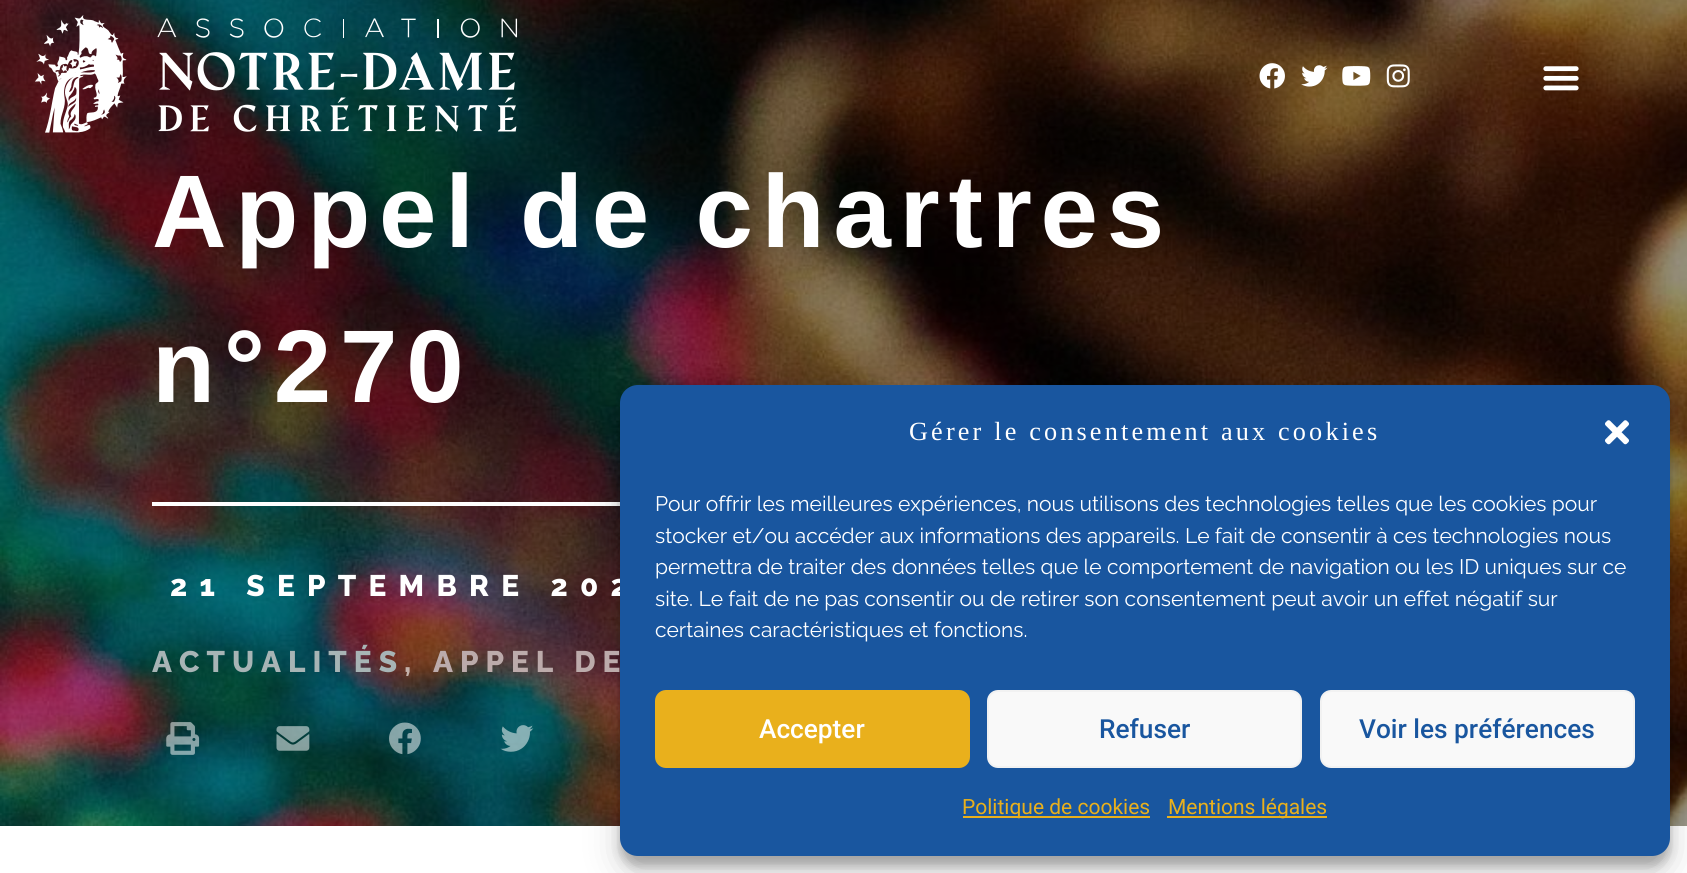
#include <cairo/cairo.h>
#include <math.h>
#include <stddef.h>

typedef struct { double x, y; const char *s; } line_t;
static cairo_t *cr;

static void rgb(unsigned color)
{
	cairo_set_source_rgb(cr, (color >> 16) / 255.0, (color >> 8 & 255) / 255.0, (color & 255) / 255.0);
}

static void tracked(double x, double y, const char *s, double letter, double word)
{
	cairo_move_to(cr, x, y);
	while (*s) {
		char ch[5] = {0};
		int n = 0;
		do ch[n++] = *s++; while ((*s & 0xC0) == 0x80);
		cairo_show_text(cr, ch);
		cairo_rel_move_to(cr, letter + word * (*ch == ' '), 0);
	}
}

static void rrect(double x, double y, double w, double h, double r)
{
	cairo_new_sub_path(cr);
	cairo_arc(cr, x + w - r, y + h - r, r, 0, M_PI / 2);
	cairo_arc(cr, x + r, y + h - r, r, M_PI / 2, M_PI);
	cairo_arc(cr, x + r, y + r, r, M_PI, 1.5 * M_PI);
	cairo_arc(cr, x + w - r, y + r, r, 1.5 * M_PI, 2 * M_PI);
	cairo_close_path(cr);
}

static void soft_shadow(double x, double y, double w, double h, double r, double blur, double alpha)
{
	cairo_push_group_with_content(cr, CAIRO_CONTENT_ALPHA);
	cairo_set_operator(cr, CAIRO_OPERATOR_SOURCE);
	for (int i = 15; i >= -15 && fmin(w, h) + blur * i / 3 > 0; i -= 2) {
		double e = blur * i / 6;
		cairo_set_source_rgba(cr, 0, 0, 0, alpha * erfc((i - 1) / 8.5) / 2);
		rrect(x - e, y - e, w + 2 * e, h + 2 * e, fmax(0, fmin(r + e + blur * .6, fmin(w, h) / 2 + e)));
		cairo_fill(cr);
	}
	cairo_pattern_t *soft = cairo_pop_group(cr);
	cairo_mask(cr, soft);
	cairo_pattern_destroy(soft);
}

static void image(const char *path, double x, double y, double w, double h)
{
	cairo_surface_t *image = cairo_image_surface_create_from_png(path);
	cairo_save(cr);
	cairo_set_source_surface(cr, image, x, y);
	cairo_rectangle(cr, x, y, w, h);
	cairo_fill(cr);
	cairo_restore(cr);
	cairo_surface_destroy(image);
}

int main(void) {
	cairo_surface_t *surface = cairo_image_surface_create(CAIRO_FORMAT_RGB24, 1687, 873);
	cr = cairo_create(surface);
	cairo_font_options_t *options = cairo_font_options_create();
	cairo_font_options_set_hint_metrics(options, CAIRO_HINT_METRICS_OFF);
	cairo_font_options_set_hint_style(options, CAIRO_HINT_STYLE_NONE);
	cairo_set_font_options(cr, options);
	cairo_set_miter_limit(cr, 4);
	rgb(0xffffff);
	cairo_paint(cr);
	image("img/7.png", 0, 0, 1687, 826);
	image("img/1.png", 35, 15, 483, 118);
	image("img/2.png", 1259, 63, 26, 26);
	image("img/3.png", 1301, 65, 27, 22);
	image("img/4.png", 1342, 66, 29, 20);
	image("img/5.png", 1386, 64, 24, 24);
	image("img/6.png", 1543, 66, 36, 25);
	rgb(0xffffff);
	cairo_rectangle(cr, 152, 502, 468, 4);
	cairo_fill(cr);
	image("img/8.png", 166, 722, 34, 33);
	image("img/9.png", 276, 726, 34, 25);
	image("img/10.png", 389, 722, 32, 33);
	image("img/11.png", 500, 725, 34, 27);
	rgb(0x000000);
	soft_shadow(620, 396, 1050, 470, 18, 5, 0.23);
	soft_shadow(620, 403, 1050, 470, 18, 17.5, 0.19);
	cairo_select_font_face(cr, "Liberation Sans", CAIRO_FONT_SLANT_NORMAL, CAIRO_FONT_WEIGHT_BOLD);
	cairo_set_font_size(cr, 103.25);
	rgb(0xffffff);
	tracked(152, 247, "Appel de chartres", 8.75, 0);
	tracked(152, 402, "n°270", 8.75, 0);
	cairo_select_font_face(cr, "Raleway ExtraBold", CAIRO_FONT_SLANT_NORMAL, CAIRO_FONT_WEIGHT_NORMAL);
	cairo_set_font_size(cr, 29.75);
	tracked(170, 596, "21 SEPTEMBRE 202", 12.25, 0);
	rgb(0xa7b4b5);
	tracked(152, 672, "ACTUALITÉS", 7, 0);
	rgb(0xc3b1aa);
	tracked(404, 672, ",", 7, 0);
	rgb(0xbcabab);
	tracked(433, 672, "APPEL DE", 7, 0);
	rgb(0x19569f);
	rrect(620, 385, 1050, 471, 18);
	cairo_fill(cr);
	cairo_select_font_face(cr, "Liberation Serif", CAIRO_FONT_SLANT_NORMAL, CAIRO_FONT_WEIGHT_NORMAL);
	cairo_set_font_size(cr, 26.25);
	rgb(0xffffff);
	tracked(909, 440, "Gérer le consentement aux cookies", 3.15, 0);
	image("img/12.png", 1605, 420, 24, 25);
	cairo_select_font_face(cr, "Raleway", CAIRO_FONT_SLANT_NORMAL, CAIRO_FONT_WEIGHT_NORMAL);
	cairo_set_font_size(cr, 21);
	{
		static const line_t items[] = {
			{655, 511, "Pour offrir les meilleures expériences, nous utilisons des technologies telles que les cookies pour"},
			{655, 543, "stocker et/ou accéder aux informations des appareils. Le fait de consentir à ces technologies nous"},
			{655, 574, "permettra de traiter des données telles que le comportement de navigation ou les ID uniques sur ce"},
			{655, 606, "site. Le fait de ne pas consentir ou de retirer son consentement peut avoir un effet négatif sur"},
			{655, 637, "certaines caractéristiques et fonctions."},
		};
		for (size_t i = 0; i < sizeof items / sizeof *items; i++) {
			cairo_move_to(cr, items[i].x, items[i].y);
			cairo_show_text(cr, items[i].s);
		}
	}
	rgb(0xe9b01c);
	rrect(656, 691, 313, 76, 10);
	cairo_fill_preserve(cr);
	cairo_stroke(cr);
	cairo_select_font_face(cr, "Roboto Medium", CAIRO_FONT_SLANT_NORMAL, CAIRO_FONT_WEIGHT_NORMAL);
	cairo_set_font_size(cr, 26.25);
	rgb(0xffffff);
	cairo_move_to(cr, 759, 738);
	cairo_show_text(cr, "Accepter");
	rgb(0xf9f9f9);
	rrect(988, 691, 313, 76, 10);
	cairo_fill_preserve(cr);
	rgb(0xf2f2f2);
	cairo_stroke(cr);
	rgb(0x19569f);
	cairo_move_to(cr, 1099, 738);
	cairo_show_text(cr, "Refuser");
	rgb(0xf9f9f9);
	rrect(1321, 691, 313, 76, 10);
	cairo_fill_preserve(cr);
	rgb(0xf2f2f2);
	cairo_stroke(cr);
	rgb(0x19569f);
	cairo_move_to(cr, 1359, 738);
	cairo_show_text(cr, "Voir les préférences");
	rgb(0xe9b01c);
	cairo_rectangle(cr, 963, 816, 187, 2);
	cairo_fill(cr);
	cairo_select_font_face(cr, "Roboto", CAIRO_FONT_SLANT_NORMAL, CAIRO_FONT_WEIGHT_NORMAL);
	cairo_set_font_size(cr, 21);
	cairo_move_to(cr, 962, 814);
	cairo_show_text(cr, "Politique de cookies");
	cairo_rectangle(cr, 1167, 816, 160, 2);
	cairo_fill(cr);
	cairo_move_to(cr, 1168, 814);
	cairo_show_text(cr, "Mentions légales");
	cairo_surface_write_to_png(surface, "page.png");
	cairo_font_options_destroy(options);
	cairo_destroy(cr);
	cairo_surface_destroy(surface);
	return 0;
}
